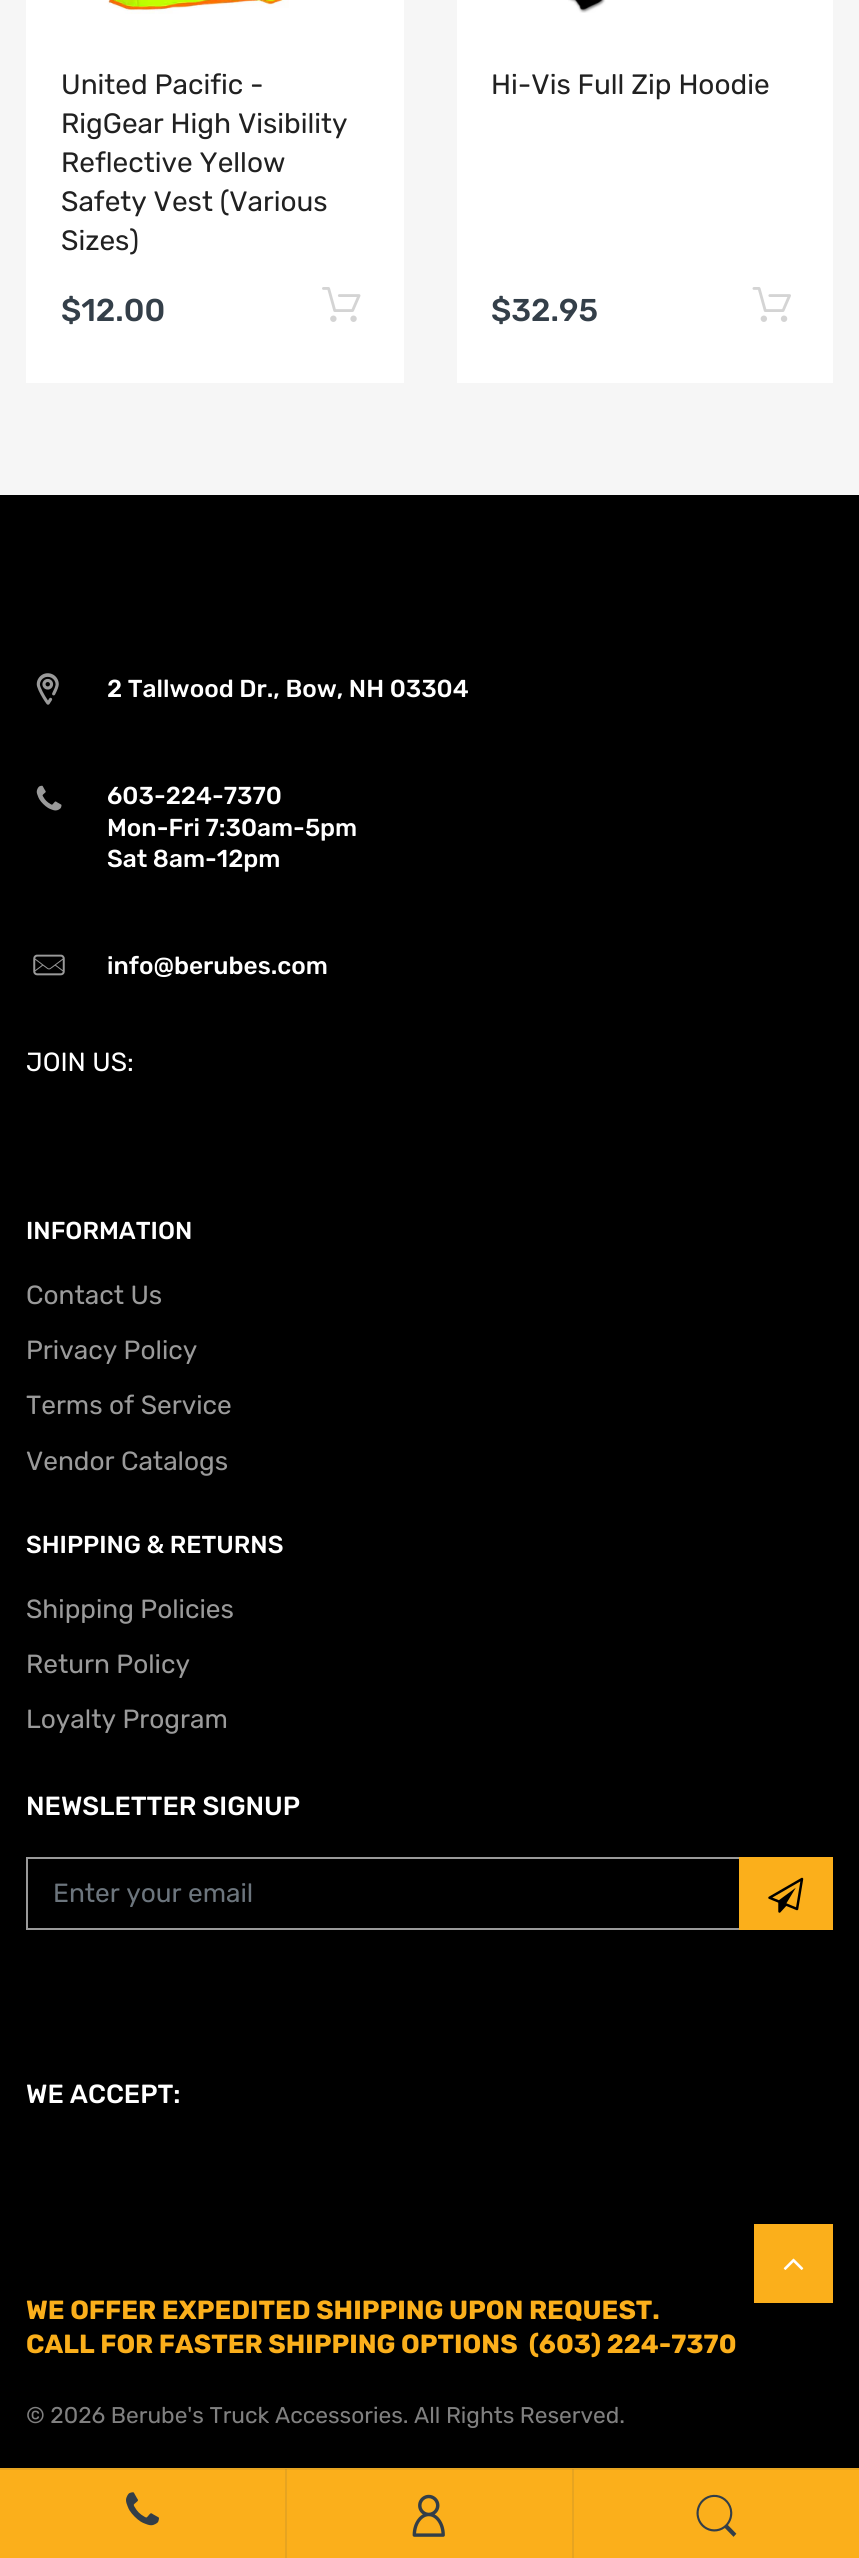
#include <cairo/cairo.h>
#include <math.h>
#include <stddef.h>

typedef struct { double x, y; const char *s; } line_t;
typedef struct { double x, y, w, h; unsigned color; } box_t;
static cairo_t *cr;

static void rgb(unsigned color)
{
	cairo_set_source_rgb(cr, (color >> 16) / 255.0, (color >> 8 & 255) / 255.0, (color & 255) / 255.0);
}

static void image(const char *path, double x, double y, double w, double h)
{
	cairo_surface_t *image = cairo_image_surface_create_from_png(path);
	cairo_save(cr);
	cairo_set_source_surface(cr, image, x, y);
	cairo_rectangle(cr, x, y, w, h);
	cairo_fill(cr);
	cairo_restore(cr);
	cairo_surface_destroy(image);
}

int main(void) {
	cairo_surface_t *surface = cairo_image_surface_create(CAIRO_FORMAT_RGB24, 859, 2558);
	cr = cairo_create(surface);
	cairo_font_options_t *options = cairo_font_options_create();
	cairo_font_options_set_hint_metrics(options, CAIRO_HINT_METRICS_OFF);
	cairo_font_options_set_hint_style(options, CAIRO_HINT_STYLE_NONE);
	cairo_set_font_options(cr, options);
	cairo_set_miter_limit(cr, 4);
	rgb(0xf6f6f6);
	cairo_paint(cr);
	rgb(0xffffff);
	cairo_rectangle(cr, 26, 0, 378, 383);
	cairo_fill(cr);
	image("img/1.png", 107, 0, 182, 14);
	image("img/2.png", 322, 287, 39, 35);
	cairo_rectangle(cr, 457, 0, 376, 383);
	cairo_fill(cr);
	image("img/3.png", 568, 0, 38, 13);
	image("img/4.png", 752, 287, 39, 35);
	rgb(0x000000);
	cairo_rectangle(cr, 0, 495, 859, 1973);
	cairo_fill(cr);
	image("img/5.png", 36, 673, 23, 32);
	image("img/6.png", 36, 785, 26, 26);
	image("img/7.png", 33, 954, 32, 22);
	cairo_rectangle(cr, 27, 1858, 725, 71);
	rgb(0x9a9a9a);
	cairo_stroke(cr);
	rgb(0xfbaf1b);
	cairo_rectangle(cr, 739, 1857, 94, 73);
	cairo_fill(cr);
	image("img/8.png", 768, 1877, 36, 36);
	cairo_rectangle(cr, 754, 2224, 79, 79);
	cairo_fill(cr);
	image("img/9.png", 783, 2258, 21, 12);
	{
		static const box_t items[] = {
			{0, 2470, 859, 88, 0xfbaf1b},
			{572, 2469, 2, 89, 0xe7a420},
			{285, 2469, 2, 89, 0xe7a420},
			{0, 2468, 859, 2, 0xe7a420},
			{572, 2469, 2, 1, 0xd59a24},
			{285, 2469, 2, 1, 0xd59a24},
		};
		for (size_t i = 0; i < sizeof items / sizeof *items; i++) {
			rgb(items[i].color);
			cairo_rectangle(cr, items[i].x, items[i].y, items[i].w, items[i].h);
			cairo_fill(cr);
		}
	}
	image("img/10.png", 126, 2492, 33, 34);
	image("img/11.png", 412, 2494, 33, 43);
	image("img/12.png", 696, 2494, 41, 43);
	cairo_select_font_face(cr, "Rubik", CAIRO_FONT_SLANT_NORMAL, CAIRO_FONT_WEIGHT_NORMAL);
	cairo_set_font_size(cr, 28);
	rgb(0x212121);
	{
		static const line_t items[] = {
			{61, 94, "United Pacific -"},
			{61, 133, "RigGear High Visibility"},
			{61, 172, "Reflective Yellow"},
			{61, 211, "Safety Vest (Various"},
			{61, 250, "Sizes)"},
		};
		for (size_t i = 0; i < sizeof items / sizeof *items; i++) {
			cairo_move_to(cr, items[i].x, items[i].y);
			cairo_show_text(cr, items[i].s);
		}
	}
	cairo_select_font_face(cr, "Rubik Medium", CAIRO_FONT_SLANT_NORMAL, CAIRO_FONT_WEIGHT_NORMAL);
	cairo_set_font_size(cr, 31.5);
	rgb(0x343f49);
	cairo_move_to(cr, 61, 321);
	cairo_show_text(cr, "$12.00");
	cairo_select_font_face(cr, "Rubik", CAIRO_FONT_SLANT_NORMAL, CAIRO_FONT_WEIGHT_NORMAL);
	cairo_set_font_size(cr, 28);
	rgb(0x212121);
	cairo_move_to(cr, 491, 94);
	cairo_show_text(cr, "Hi-Vis Full Zip Hoodie");
	cairo_select_font_face(cr, "Rubik Medium", CAIRO_FONT_SLANT_NORMAL, CAIRO_FONT_WEIGHT_NORMAL);
	cairo_set_font_size(cr, 31.5);
	rgb(0x343f49);
	cairo_move_to(cr, 491, 321);
	cairo_show_text(cr, "$32.95");
	cairo_set_font_size(cr, 24.5);
	rgb(0xffffff);
	{
		static const line_t items[] = {
			{107, 697, "2 Tallwood Dr., Bow, NH 03304"},
			{107, 804, "603-224-7370"},
			{107, 836, "Mon-Fri 7:30am-5pm"},
			{107, 867, "Sat 8am-12pm"},
			{107, 974, "info@berubes.com"},
		};
		for (size_t i = 0; i < sizeof items / sizeof *items; i++) {
			cairo_move_to(cr, items[i].x, items[i].y);
			cairo_show_text(cr, items[i].s);
		}
	}
	cairo_select_font_face(cr, "Rubik", CAIRO_FONT_SLANT_NORMAL, CAIRO_FONT_WEIGHT_NORMAL);
	cairo_set_font_size(cr, 26.25);
	cairo_move_to(cr, 26, 1071);
	cairo_show_text(cr, "JOIN US:");
	cairo_select_font_face(cr, "Rubik Medium", CAIRO_FONT_SLANT_NORMAL, CAIRO_FONT_WEIGHT_NORMAL);
	cairo_set_font_size(cr, 24.5);
	cairo_move_to(cr, 26, 1239);
	cairo_show_text(cr, "INFORMATION");
	cairo_select_font_face(cr, "Rubik", CAIRO_FONT_SLANT_NORMAL, CAIRO_FONT_WEIGHT_NORMAL);
	cairo_set_font_size(cr, 26.25);
	rgb(0x9a9a9a);
	{
		static const line_t items[] = {
			{26, 1304, "Contact Us"},
			{26, 1359, "Privacy Policy"},
			{26, 1414, "Terms of Service"},
			{26, 1470, "Vendor Catalogs"},
		};
		for (size_t i = 0; i < sizeof items / sizeof *items; i++) {
			cairo_move_to(cr, items[i].x, items[i].y);
			cairo_show_text(cr, items[i].s);
		}
	}
	cairo_select_font_face(cr, "Rubik Medium", CAIRO_FONT_SLANT_NORMAL, CAIRO_FONT_WEIGHT_NORMAL);
	cairo_set_font_size(cr, 24.5);
	rgb(0xffffff);
	cairo_move_to(cr, 26, 1553);
	cairo_show_text(cr, "SHIPPING & RETURNS");
	cairo_select_font_face(cr, "Rubik", CAIRO_FONT_SLANT_NORMAL, CAIRO_FONT_WEIGHT_NORMAL);
	cairo_set_font_size(cr, 26.25);
	rgb(0x9a9a9a);
	{
		static const line_t items[] = {
			{26, 1618, "Shipping Policies"},
			{26, 1673, "Return Policy"},
			{26, 1728, "Loyalty Program"},
		};
		for (size_t i = 0; i < sizeof items / sizeof *items; i++) {
			cairo_move_to(cr, items[i].x, items[i].y);
			cairo_show_text(cr, items[i].s);
		}
	}
	cairo_select_font_face(cr, "Rubik Medium", CAIRO_FONT_SLANT_NORMAL, CAIRO_FONT_WEIGHT_NORMAL);
	rgb(0xffffff);
	cairo_move_to(cr, 26, 1815);
	cairo_show_text(cr, "NEWSLETTER SIGNUP");
	cairo_select_font_face(cr, "Rubik", CAIRO_FONT_SLANT_NORMAL, CAIRO_FONT_WEIGHT_NORMAL);
	rgb(0x6c757d);
	cairo_move_to(cr, 53, 1902);
	cairo_show_text(cr, "Enter your email");
	cairo_select_font_face(cr, "Rubik Medium", CAIRO_FONT_SLANT_NORMAL, CAIRO_FONT_WEIGHT_NORMAL);
	rgb(0xffffff);
	cairo_move_to(cr, 26, 2103);
	cairo_show_text(cr, "WE ACCEPT:");
	cairo_select_font_face(cr, "Rubik", CAIRO_FONT_SLANT_NORMAL, CAIRO_FONT_WEIGHT_BOLD);
	rgb(0xfbaf1b);
	cairo_move_to(cr, 26, 2319);
	cairo_show_text(cr, "WE OFFER EXPEDITED SHIPPING UPON REQUEST.");
	cairo_move_to(cr, 26, 2353);
	cairo_show_text(cr, "CALL FOR FASTER SHIPPING OPTIONS  (603) 224-7370");
	cairo_select_font_face(cr, "Rubik", CAIRO_FONT_SLANT_NORMAL, CAIRO_FONT_WEIGHT_NORMAL);
	cairo_set_font_size(cr, 22.75);
	rgb(0x808080);
	cairo_move_to(cr, 26, 2423);
	cairo_show_text(cr, "© 2026 Berube's Truck Accessories. All Rights Reserved.");
	cairo_surface_write_to_png(surface, "page.png");
	cairo_font_options_destroy(options);
	cairo_destroy(cr);
	cairo_surface_destroy(surface);
	return 0;
}
